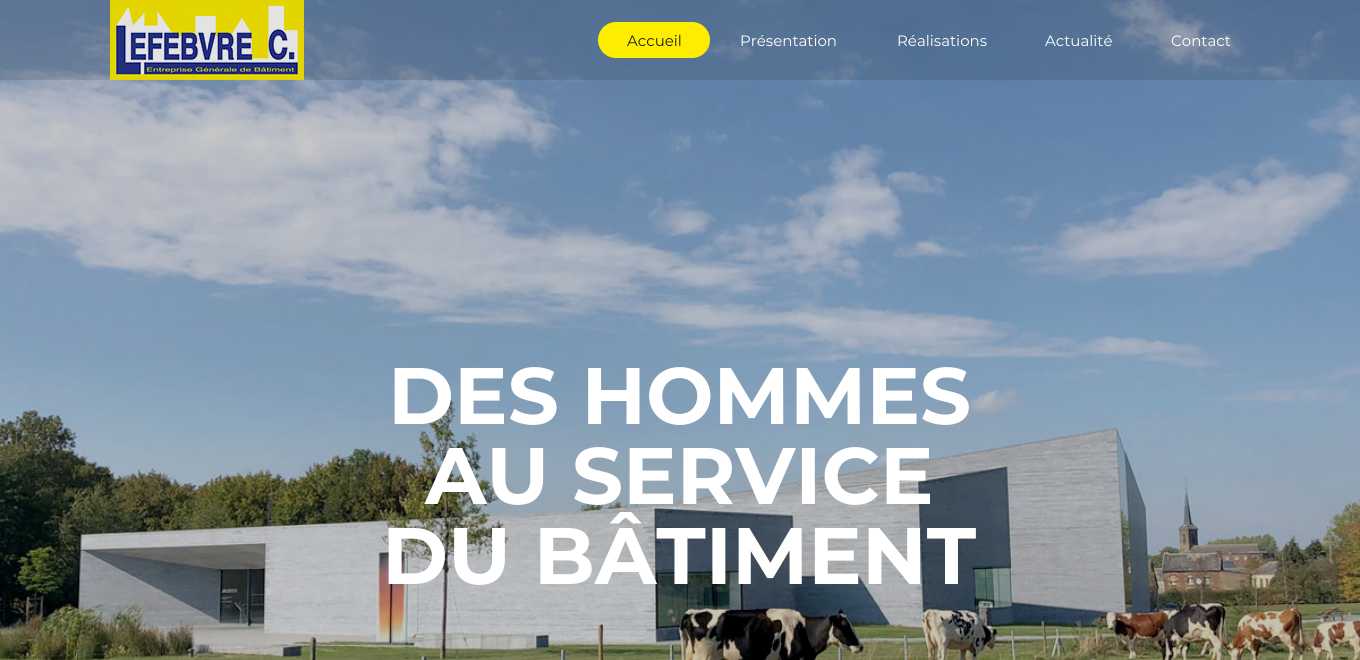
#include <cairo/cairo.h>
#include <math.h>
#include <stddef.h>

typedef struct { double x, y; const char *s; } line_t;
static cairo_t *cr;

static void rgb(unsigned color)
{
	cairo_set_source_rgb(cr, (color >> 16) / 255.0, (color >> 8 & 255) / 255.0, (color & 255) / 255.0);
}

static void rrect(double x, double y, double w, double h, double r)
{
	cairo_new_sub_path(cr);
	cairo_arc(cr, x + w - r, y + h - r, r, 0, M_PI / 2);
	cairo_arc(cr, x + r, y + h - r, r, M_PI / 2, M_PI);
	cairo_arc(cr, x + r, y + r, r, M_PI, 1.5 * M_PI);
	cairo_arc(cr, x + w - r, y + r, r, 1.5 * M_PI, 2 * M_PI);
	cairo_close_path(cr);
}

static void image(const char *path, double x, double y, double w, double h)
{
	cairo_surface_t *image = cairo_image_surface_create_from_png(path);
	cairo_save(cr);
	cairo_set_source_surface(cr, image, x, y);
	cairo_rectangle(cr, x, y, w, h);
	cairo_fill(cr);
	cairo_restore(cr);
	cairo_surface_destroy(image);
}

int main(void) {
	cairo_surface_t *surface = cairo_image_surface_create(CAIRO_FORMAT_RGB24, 1360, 660);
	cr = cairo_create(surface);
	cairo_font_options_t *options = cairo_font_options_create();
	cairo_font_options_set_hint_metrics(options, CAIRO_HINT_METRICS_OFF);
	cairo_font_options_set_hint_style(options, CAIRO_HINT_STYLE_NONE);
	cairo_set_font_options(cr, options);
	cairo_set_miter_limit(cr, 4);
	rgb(0xffffff);
	cairo_paint(cr);
	image("img/1.png", 0, 0, 1360, 660);
	image("img/2.png", 110, 0, 194, 80);
	cairo_set_source_rgba(cr, 0, 0, 0, 0.11);
	cairo_rectangle(cr, 0, 0, 1360, 80);
	cairo_fill(cr);
	rgb(0xffed00);
	rrect(598, 22, 112, 36, 18);
	cairo_fill(cr);
	cairo_select_font_face(cr, "Montserrat", CAIRO_FONT_SLANT_NORMAL, CAIRO_FONT_WEIGHT_NORMAL);
	cairo_set_font_size(cr, 15);
	rgb(0x1f1f1f);
	cairo_move_to(cr, 627, 46);
	cairo_show_text(cr, "Accueil");
	rgb(0xffffff);
	{
		static const line_t items[] = {
			{740, 46, "Présentation"},
			{897, 46, "Réalisations"},
			{1045, 46, "Actualité"},
			{1171, 46, "Contact"},
		};
		for (size_t i = 0; i < sizeof items / sizeof *items; i++) {
			cairo_move_to(cr, items[i].x, items[i].y);
			cairo_show_text(cr, items[i].s);
		}
	}
	cairo_select_font_face(cr, "Montserrat", CAIRO_FONT_SLANT_NORMAL, CAIRO_FONT_WEIGHT_BOLD);
	cairo_set_font_size(cr, 80);
	{
		static const line_t items[] = {
			{388, 424, "DES HOMMES"},
			{425, 504, "AU SERVICE"},
			{382, 584, "DU BÂTIMENT"},
		};
		for (size_t i = 0; i < sizeof items / sizeof *items; i++) {
			cairo_move_to(cr, items[i].x, items[i].y);
			cairo_show_text(cr, items[i].s);
		}
	}
	cairo_surface_write_to_png(surface, "page.png");
	cairo_font_options_destroy(options);
	cairo_destroy(cr);
	cairo_surface_destroy(surface);
	return 0;
}
